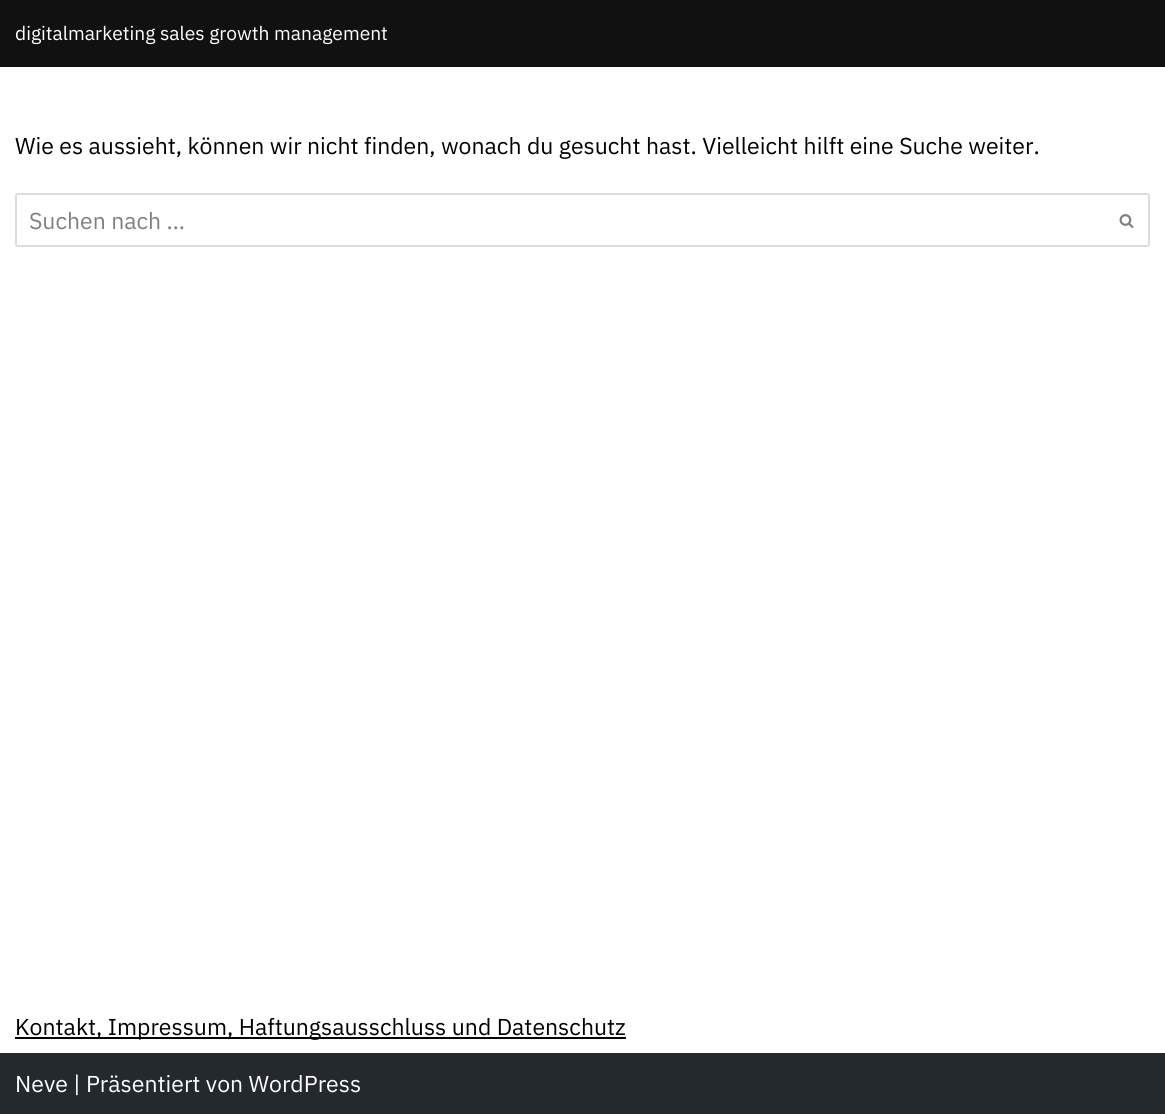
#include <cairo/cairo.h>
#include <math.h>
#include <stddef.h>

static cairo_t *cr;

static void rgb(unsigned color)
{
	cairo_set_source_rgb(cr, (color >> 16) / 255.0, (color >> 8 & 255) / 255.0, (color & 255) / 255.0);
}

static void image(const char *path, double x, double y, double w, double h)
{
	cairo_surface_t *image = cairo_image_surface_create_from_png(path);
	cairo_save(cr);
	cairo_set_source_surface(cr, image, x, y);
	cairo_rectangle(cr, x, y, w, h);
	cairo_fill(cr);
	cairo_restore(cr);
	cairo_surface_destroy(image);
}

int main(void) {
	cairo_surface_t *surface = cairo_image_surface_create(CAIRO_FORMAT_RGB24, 1165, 1114);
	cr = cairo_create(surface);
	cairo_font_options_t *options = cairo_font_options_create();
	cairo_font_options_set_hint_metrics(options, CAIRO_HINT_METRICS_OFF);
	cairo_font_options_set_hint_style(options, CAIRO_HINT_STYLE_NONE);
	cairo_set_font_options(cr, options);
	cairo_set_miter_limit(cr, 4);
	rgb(0xffffff);
	cairo_paint(cr);
	rgb(0x111111);
	cairo_rectangle(cr, 0, 0, 1165, 67);
	cairo_fill(cr);
	rgb(0xdddddd);
	cairo_set_fill_rule(cr, CAIRO_FILL_RULE_EVEN_ODD);
	cairo_new_path(cr);
	cairo_move_to(cr, 18, 193);
	cairo_line_to(cr, 1105, 193);
	cairo_line_to(cr, 1105, 247);
	cairo_line_to(cr, 18, 247);
	cairo_curve_to(cr, 16, 247, 15, 246, 15, 244);
	cairo_line_to(cr, 15, 196);
	cairo_curve_to(cr, 15, 194, 16, 193, 18, 193);
	cairo_close_path(cr);
	cairo_move_to(cr, 18, 195);
	cairo_line_to(cr, 1105, 195);
	cairo_line_to(cr, 1105, 245);
	cairo_line_to(cr, 18, 245);
	cairo_curve_to(cr, 17, 245, 17, 245, 17, 244);
	cairo_line_to(cr, 17, 196);
	cairo_curve_to(cr, 17, 195, 17, 195, 18, 195);
	cairo_close_path(cr);
	cairo_fill(cr);
	cairo_new_path(cr);
	cairo_move_to(cr, 1105, 193);
	cairo_line_to(cr, 1147, 193);
	cairo_curve_to(cr, 1149, 193, 1150, 194, 1150, 196);
	cairo_line_to(cr, 1150, 244);
	cairo_curve_to(cr, 1150, 246, 1149, 247, 1147, 247);
	cairo_line_to(cr, 1105, 247);
	cairo_close_path(cr);
	cairo_move_to(cr, 1105, 195);
	cairo_line_to(cr, 1147, 195);
	cairo_curve_to(cr, 1148, 195, 1148, 195, 1148, 196);
	cairo_line_to(cr, 1148, 244);
	cairo_curve_to(cr, 1148, 245, 1148, 245, 1147, 245);
	cairo_line_to(cr, 1105, 245);
	cairo_close_path(cr);
	cairo_fill(cr);
	image("img/1.png", 1119, 214, 15, 14);
	rgb(0x000000);
	cairo_rectangle(cr, 15, 1037, 611, 2);
	cairo_fill(cr);
	rgb(0x24292e);
	cairo_rectangle(cr, 0, 1053, 1165, 61);
	cairo_fill(cr);
	cairo_select_font_face(cr, "IBM Plex Sans", CAIRO_FONT_SLANT_NORMAL, CAIRO_FONT_WEIGHT_NORMAL);
	cairo_set_font_size(cr, 19.2);
	rgb(0xffffff);
	cairo_move_to(cr, 15, 40);
	cairo_show_text(cr, "digitalmarketing sales growth management");
	cairo_set_font_size(cr, 23);
	rgb(0x000000);
	cairo_move_to(cr, 15, 154);
	cairo_show_text(cr, "Wie es aussieht, können wir nicht finden, wonach du gesucht hast. Vielleicht hilft eine Suche weiter.");
	rgb(0x808080);
	cairo_move_to(cr, 29, 229);
	cairo_show_text(cr, "Suchen nach …");
	rgb(0x000000);
	cairo_move_to(cr, 15, 1035);
	cairo_show_text(cr, "Kontakt, Impressum, Haftungsausschluss und Datenschutz");
	rgb(0xffffff);
	cairo_move_to(cr, 15, 1092);
	cairo_show_text(cr, "Neve | Präsentiert von WordPress");
	cairo_surface_write_to_png(surface, "page.png");
	cairo_font_options_destroy(options);
	cairo_destroy(cr);
	cairo_surface_destroy(surface);
	return 0;
}
